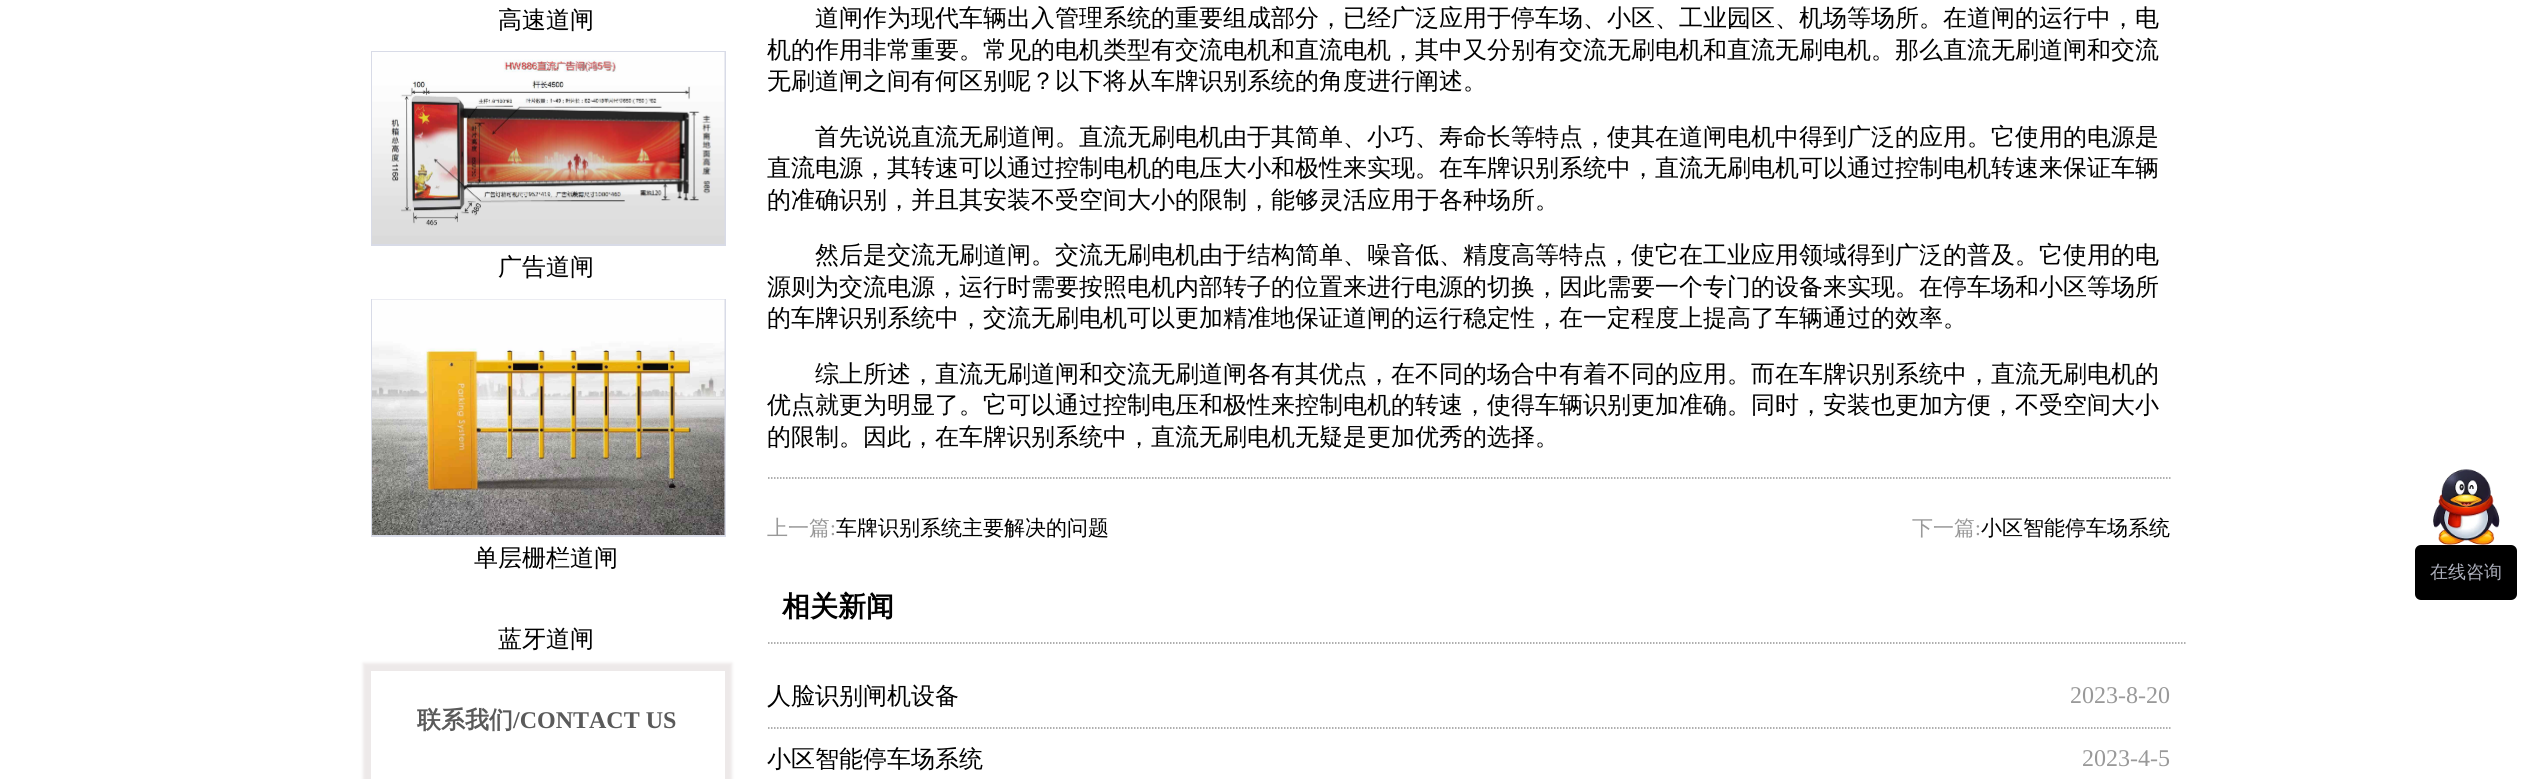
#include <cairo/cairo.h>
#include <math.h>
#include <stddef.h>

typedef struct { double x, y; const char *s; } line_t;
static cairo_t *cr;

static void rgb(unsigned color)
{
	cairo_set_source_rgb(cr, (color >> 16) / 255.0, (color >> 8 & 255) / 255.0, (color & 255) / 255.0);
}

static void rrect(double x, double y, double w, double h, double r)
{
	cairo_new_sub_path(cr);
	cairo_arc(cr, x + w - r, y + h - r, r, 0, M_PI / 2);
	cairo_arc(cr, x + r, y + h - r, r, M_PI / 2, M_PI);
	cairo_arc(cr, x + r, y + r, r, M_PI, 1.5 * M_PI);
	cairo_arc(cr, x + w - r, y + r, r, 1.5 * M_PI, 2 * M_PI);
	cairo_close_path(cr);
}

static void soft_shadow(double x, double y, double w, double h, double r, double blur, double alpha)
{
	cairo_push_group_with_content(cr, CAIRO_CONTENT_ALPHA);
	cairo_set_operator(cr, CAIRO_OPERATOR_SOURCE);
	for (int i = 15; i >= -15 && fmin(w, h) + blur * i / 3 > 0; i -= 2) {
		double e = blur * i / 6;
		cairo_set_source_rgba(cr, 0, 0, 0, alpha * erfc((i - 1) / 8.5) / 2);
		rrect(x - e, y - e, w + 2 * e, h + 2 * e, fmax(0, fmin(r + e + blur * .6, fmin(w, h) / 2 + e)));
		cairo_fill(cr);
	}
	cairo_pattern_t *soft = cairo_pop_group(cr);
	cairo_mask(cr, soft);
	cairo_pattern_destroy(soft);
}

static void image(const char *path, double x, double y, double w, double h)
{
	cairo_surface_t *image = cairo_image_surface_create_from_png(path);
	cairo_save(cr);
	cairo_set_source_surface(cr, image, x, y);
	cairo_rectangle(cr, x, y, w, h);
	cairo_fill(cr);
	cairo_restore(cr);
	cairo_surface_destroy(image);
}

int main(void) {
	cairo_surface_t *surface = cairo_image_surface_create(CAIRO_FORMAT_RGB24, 2539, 779);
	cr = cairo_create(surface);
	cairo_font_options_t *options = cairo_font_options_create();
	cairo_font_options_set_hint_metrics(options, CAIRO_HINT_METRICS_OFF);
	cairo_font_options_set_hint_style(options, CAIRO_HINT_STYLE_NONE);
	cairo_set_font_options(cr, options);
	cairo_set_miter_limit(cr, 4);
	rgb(0xffffff);
	cairo_paint(cr);
	cairo_rectangle(cr, 372, 52, 353, 193);
	rgb(0xd8dbe7);
	cairo_stroke(cr);
	image("img/1.png", 372, 52, 353, 192);
	cairo_rectangle(cr, 372, 300, 353, 236);
	cairo_stroke(cr);
	image("img/2.png", 372, 299, 353, 236);
	cairo_save(cr);
	cairo_set_fill_rule(cr, CAIRO_FILL_RULE_EVEN_ODD);
	cairo_new_path(cr);
	cairo_move_to(cr, 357, 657);
	cairo_line_to(cr, 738, 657);
	cairo_line_to(cr, 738, 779);
	cairo_line_to(cr, 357, 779);
	cairo_close_path(cr);
	cairo_move_to(cr, 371, 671);
	cairo_line_to(cr, 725, 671);
	cairo_line_to(cr, 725, 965);
	cairo_line_to(cr, 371, 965);
	cairo_close_path(cr);
	cairo_clip(cr);
	rgb(0xede9e9);
	soft_shadow(363, 663, 369, 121, 0, 1.5, 1);
	cairo_restore(cr);
	cairo_new_path(cr);
	cairo_move_to(cr, 768, 478);
	cairo_line_to(cr, 2170.5, 478);
	rgb(0x959595);
	cairo_set_line_width(cr, 1.5);
	cairo_set_dash(cr, (double[]){1.5, 1.5}, 2, 0);
	cairo_stroke(cr);
	cairo_new_path(cr);
	cairo_move_to(cr, 768, 643);
	cairo_line_to(cr, 2185.5, 643);
	cairo_stroke(cr);
	cairo_new_path(cr);
	cairo_move_to(cr, 768, 728);
	cairo_line_to(cr, 2170.5, 728);
	cairo_stroke(cr);
	image("img/3.png", 2433, 469, 67, 76);
	rgb(0x000000);
	rrect(2415, 545, 102, 55, 6);
	cairo_fill(cr);
	cairo_select_font_face(cr, "WenQuanYi Zen Hei Medium", CAIRO_FONT_SLANT_NORMAL, CAIRO_FONT_WEIGHT_NORMAL);
	cairo_set_font_size(cr, 24);
	{
		static const line_t items[] = {
			{498, 28, "高速道闸"},
			{498, 275, "广告道闸"},
			{474, 566, "单层栅栏道闸"},
			{498, 647, "蓝牙道闸"},
		};
		for (size_t i = 0; i < sizeof items / sizeof *items; i++) {
			cairo_move_to(cr, items[i].x, items[i].y);
			cairo_show_text(cr, items[i].s);
		}
	}
	cairo_select_font_face(cr, "WenQuanYi Zen Hei", CAIRO_FONT_SLANT_NORMAL, CAIRO_FONT_WEIGHT_BOLD);
	rgb(0x5a5a5a);
	cairo_move_to(cr, 417, 728);
	cairo_show_text(cr, "联系我们");
	cairo_select_font_face(cr, "Liberation Serif", CAIRO_FONT_SLANT_NORMAL, CAIRO_FONT_WEIGHT_BOLD);
	cairo_move_to(cr, 513, 728);
	cairo_show_text(cr, "/CONTACT US");
	cairo_select_font_face(cr, "WenQuanYi Zen Hei Medium", CAIRO_FONT_SLANT_NORMAL, CAIRO_FONT_WEIGHT_NORMAL);
	rgb(0x000000);
	{
		static const line_t items[] = {
			{815, 26, "道闸作为现代车辆出入管理系统的重要组成部分，已经广泛应用于停车场、小区、工业园区、机场等场所。在道闸的运行中，电"},
			{767, 58, "机的作用非常重要。常见的电机类型有交流电机和直流电机，其中又分别有交流无刷电机和直流无刷电机。那么直流无刷道闸和交流"},
			{767, 89, "无刷道闸之间有何区别呢？以下将从车牌识别系统的角度进行阐述。"},
			{815, 145, "首先说说直流无刷道闸。直流无刷电机由于其简单、小巧、寿命长等特点，使其在道闸电机中得到广泛的应用。它使用的电源是"},
			{767, 176, "直流电源，其转速可以通过控制电机的电压大小和极性来实现。在车牌识别系统中，直流无刷电机可以通过控制电机转速来保证车辆"},
			{767, 208, "的准确识别，并且其安装不受空间大小的限制，能够灵活应用于各种场所。"},
			{815, 263, "然后是交流无刷道闸。交流无刷电机由于结构简单、噪音低、精度高等特点，使它在工业应用领域得到广泛的普及。它使用的电"},
			{767, 295, "源则为交流电源，运行时需要按照电机内部转子的位置来进行电源的切换，因此需要一个专门的设备来实现。在停车场和小区等场所"},
			{767, 326, "的车牌识别系统中，交流无刷电机可以更加精准地保证道闸的运行稳定性，在一定程度上提高了车辆通过的效率。"},
			{815, 382, "综上所述，直流无刷道闸和交流无刷道闸各有其优点，在不同的场合中有着不同的应用。而在车牌识别系统中，直流无刷电机的"},
			{767, 413, "优点就更为明显了。它可以通过控制电压和极性来控制电机的转速，使得车辆识别更加准确。同时，安装也更加方便，不受空间大小"},
			{767, 445, "的限制。因此，在车牌识别系统中，直流无刷电机无疑是更加优秀的选择。"},
		};
		for (size_t i = 0; i < sizeof items / sizeof *items; i++) {
			cairo_move_to(cr, items[i].x, items[i].y);
			cairo_show_text(cr, items[i].s);
		}
	}
	cairo_set_font_size(cr, 21);
	rgb(0x999999);
	cairo_move_to(cr, 767, 535);
	cairo_show_text(cr, "上一篇");
	cairo_select_font_face(cr, "Liberation Serif", CAIRO_FONT_SLANT_NORMAL, CAIRO_FONT_WEIGHT_NORMAL);
	cairo_move_to(cr, 830, 535);
	cairo_show_text(cr, ":");
	cairo_select_font_face(cr, "WenQuanYi Zen Hei Medium", CAIRO_FONT_SLANT_NORMAL, CAIRO_FONT_WEIGHT_NORMAL);
	rgb(0x000000);
	cairo_move_to(cr, 836, 535);
	cairo_show_text(cr, "车牌识别系统主要解决的问题");
	rgb(0x999999);
	cairo_move_to(cr, 1912, 535);
	cairo_show_text(cr, "下一篇");
	cairo_select_font_face(cr, "Liberation Serif", CAIRO_FONT_SLANT_NORMAL, CAIRO_FONT_WEIGHT_NORMAL);
	cairo_move_to(cr, 1975, 535);
	cairo_show_text(cr, ":");
	cairo_select_font_face(cr, "WenQuanYi Zen Hei Medium", CAIRO_FONT_SLANT_NORMAL, CAIRO_FONT_WEIGHT_NORMAL);
	rgb(0x000000);
	cairo_move_to(cr, 1981, 535);
	cairo_show_text(cr, "小区智能停车场系统");
	cairo_select_font_face(cr, "WenQuanYi Zen Hei", CAIRO_FONT_SLANT_NORMAL, CAIRO_FONT_WEIGHT_BOLD);
	cairo_set_font_size(cr, 28);
	cairo_move_to(cr, 782, 616);
	cairo_show_text(cr, "相关新闻");
	cairo_select_font_face(cr, "WenQuanYi Zen Hei Medium", CAIRO_FONT_SLANT_NORMAL, CAIRO_FONT_WEIGHT_NORMAL);
	cairo_set_font_size(cr, 24);
	cairo_move_to(cr, 767, 704);
	cairo_show_text(cr, "人脸识别闸机设备");
	cairo_select_font_face(cr, "Liberation Serif", CAIRO_FONT_SLANT_NORMAL, CAIRO_FONT_WEIGHT_NORMAL);
	rgb(0x999999);
	cairo_move_to(cr, 2070, 703);
	cairo_show_text(cr, "2023-8-20");
	cairo_select_font_face(cr, "WenQuanYi Zen Hei Medium", CAIRO_FONT_SLANT_NORMAL, CAIRO_FONT_WEIGHT_NORMAL);
	rgb(0x000000);
	cairo_move_to(cr, 767, 767);
	cairo_show_text(cr, "小区智能停车场系统");
	cairo_select_font_face(cr, "Liberation Serif", CAIRO_FONT_SLANT_NORMAL, CAIRO_FONT_WEIGHT_NORMAL);
	rgb(0x999999);
	cairo_move_to(cr, 2082, 766);
	cairo_show_text(cr, "2023-4-5");
	cairo_select_font_face(cr, "WenQuanYi Zen Hei Medium", CAIRO_FONT_SLANT_NORMAL, CAIRO_FONT_WEIGHT_NORMAL);
	cairo_set_font_size(cr, 18);
	rgb(0xacafbc);
	cairo_move_to(cr, 2430, 578);
	cairo_show_text(cr, "在线咨询");
	cairo_surface_write_to_png(surface, "page.png");
	cairo_font_options_destroy(options);
	cairo_destroy(cr);
	cairo_surface_destroy(surface);
	return 0;
}
